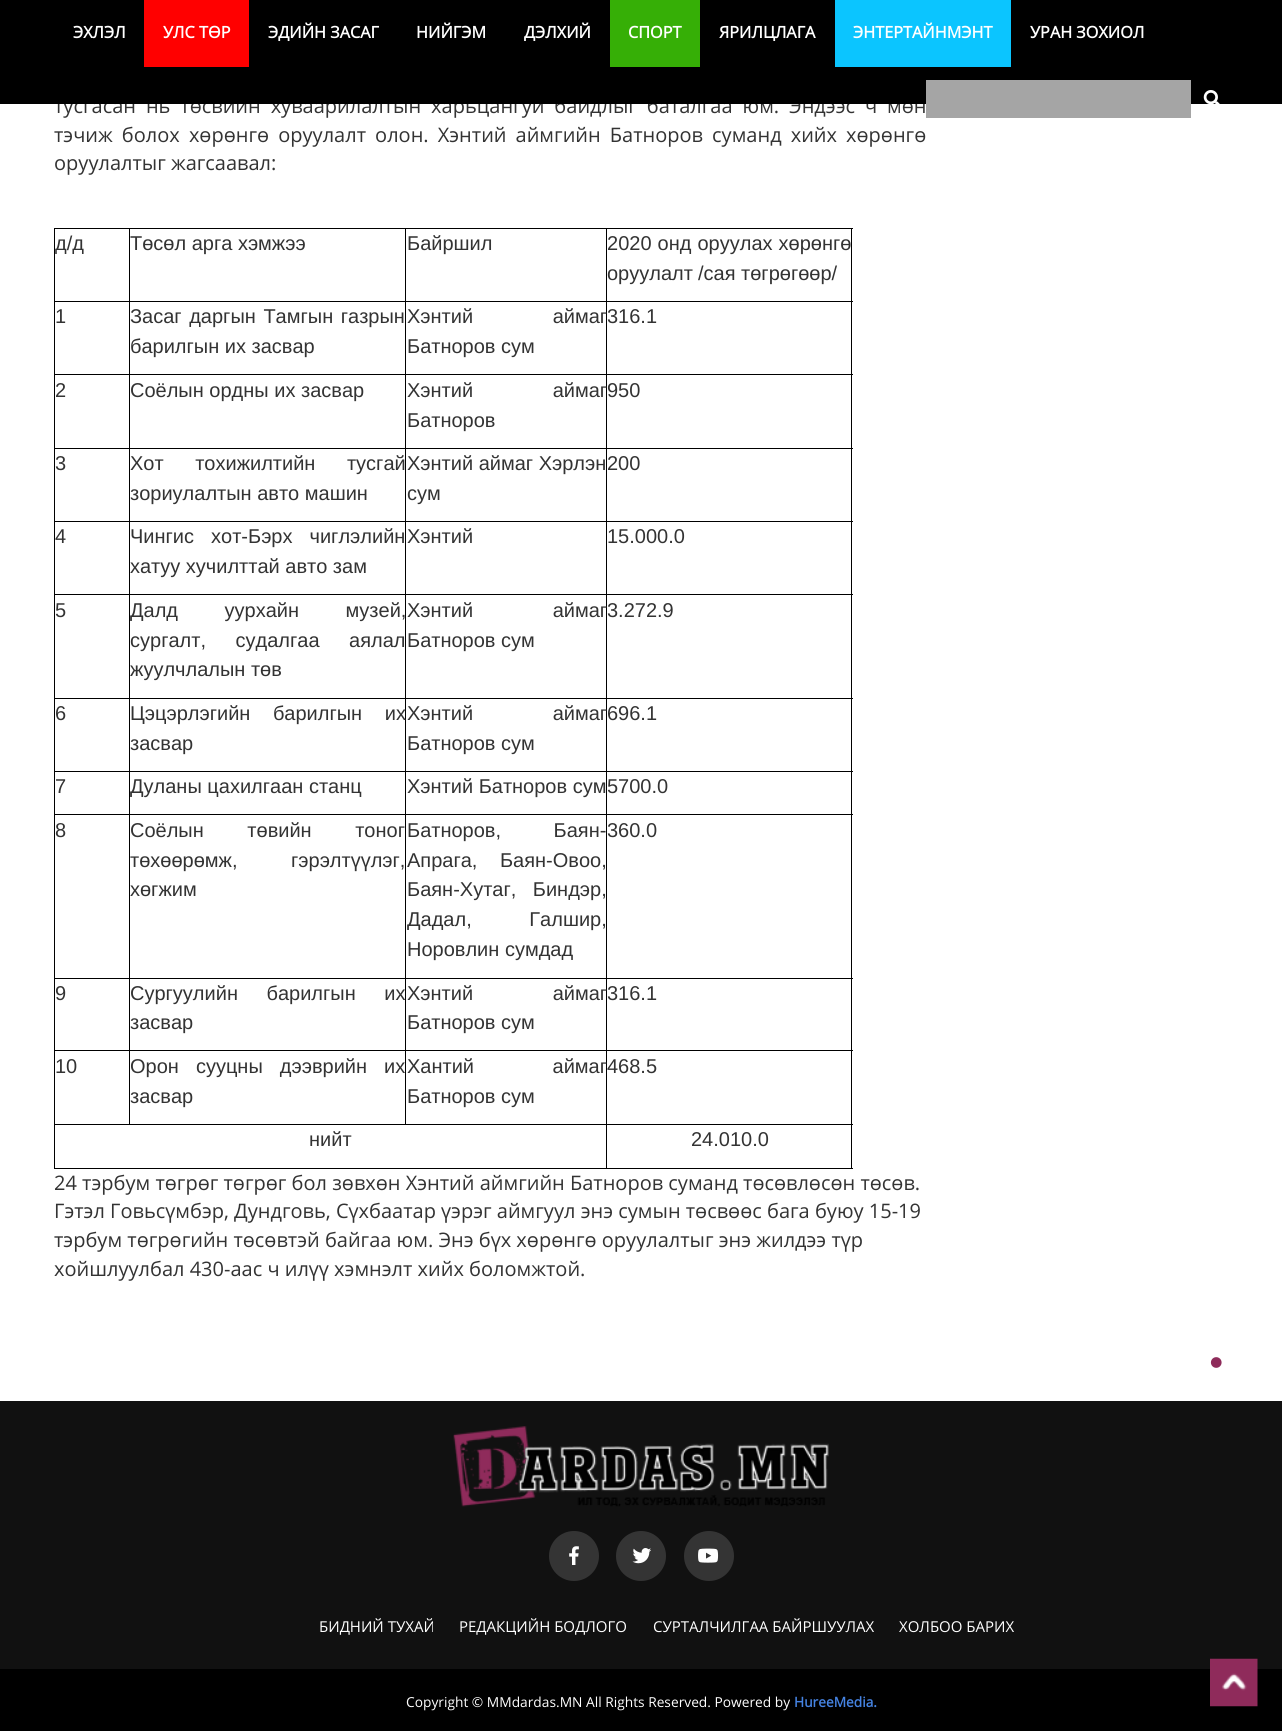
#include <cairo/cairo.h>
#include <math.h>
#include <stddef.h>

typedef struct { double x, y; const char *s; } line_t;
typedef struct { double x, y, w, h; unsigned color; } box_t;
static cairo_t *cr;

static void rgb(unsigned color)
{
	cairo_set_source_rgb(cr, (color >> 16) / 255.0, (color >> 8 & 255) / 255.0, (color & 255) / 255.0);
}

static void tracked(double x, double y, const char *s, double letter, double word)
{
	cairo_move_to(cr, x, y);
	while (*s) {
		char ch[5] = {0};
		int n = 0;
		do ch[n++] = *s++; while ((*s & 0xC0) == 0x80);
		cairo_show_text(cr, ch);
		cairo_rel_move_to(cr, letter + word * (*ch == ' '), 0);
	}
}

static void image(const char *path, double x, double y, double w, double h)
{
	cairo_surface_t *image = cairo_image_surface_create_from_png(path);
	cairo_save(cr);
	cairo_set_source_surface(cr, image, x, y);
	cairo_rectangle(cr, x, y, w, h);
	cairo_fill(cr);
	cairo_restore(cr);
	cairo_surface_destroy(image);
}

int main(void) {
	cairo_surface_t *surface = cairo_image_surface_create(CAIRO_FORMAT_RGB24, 1282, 1731);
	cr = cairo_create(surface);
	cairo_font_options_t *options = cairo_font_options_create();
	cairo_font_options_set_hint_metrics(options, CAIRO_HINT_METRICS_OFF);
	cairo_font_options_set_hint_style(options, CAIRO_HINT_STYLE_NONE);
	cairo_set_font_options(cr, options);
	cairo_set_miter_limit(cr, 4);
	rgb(0xffffff);
	cairo_paint(cr);
	{
		static const box_t items[] = {
			{54, 228, 799, 1, 0x000000},
			{851, 228, 1, 941, 0x000000},
			{54, 1168, 799, 1, 0x000000},
			{54, 228, 1, 941, 0x000000},
			{606, 301, 247, 1, 0x000000},
			{606, 374, 247, 1, 0x000000},
			{606, 448, 247, 1, 0x000000},
			{606, 521, 247, 1, 0x000000},
			{606, 594, 247, 1, 0x000000},
			{606, 698, 247, 1, 0x000000},
			{606, 771, 247, 1, 0x000000},
			{606, 814, 247, 1, 0x000000},
			{606, 978, 247, 1, 0x000000},
			{606, 1050, 247, 1, 0x000000},
			{606, 1124, 247, 1, 0x000000},
			{606, 1124, 1, 45, 0x000000},
			{54, 1124, 554, 1, 0x000000},
			{606, 1050, 1, 75, 0x000000},
			{405, 1050, 203, 1, 0x000000},
			{606, 978, 1, 73, 0x000000},
			{405, 978, 203, 1, 0x000000},
			{606, 814, 1, 165, 0x000000},
			{405, 814, 203, 1, 0x000000},
			{606, 771, 1, 44, 0x000000},
			{405, 771, 203, 1, 0x000000},
			{606, 698, 1, 75, 0x000000},
			{405, 698, 203, 1, 0x000000},
			{606, 594, 1, 105, 0x000000},
			{405, 594, 203, 1, 0x000000},
			{606, 521, 1, 74, 0x000000},
			{405, 521, 203, 1, 0x000000},
			{606, 448, 1, 75, 0x000000},
			{405, 448, 203, 1, 0x000000},
			{606, 374, 1, 75, 0x000000},
			{405, 374, 203, 1, 0x000000},
			{606, 301, 1, 74, 0x000000},
			{405, 301, 203, 1, 0x000000},
			{405, 1050, 1, 75, 0x000000},
			{129, 1050, 277, 1, 0x000000},
			{405, 978, 1, 73, 0x000000},
			{129, 978, 277, 1, 0x000000},
			{405, 814, 1, 165, 0x000000},
			{129, 814, 277, 1, 0x000000},
			{405, 771, 1, 44, 0x000000},
			{129, 771, 277, 1, 0x000000},
			{405, 698, 1, 75, 0x000000},
			{129, 698, 277, 1, 0x000000},
			{405, 594, 1, 105, 0x000000},
			{129, 594, 277, 1, 0x000000},
			{405, 521, 1, 74, 0x000000},
			{129, 521, 277, 1, 0x000000},
			{405, 448, 1, 75, 0x000000},
			{129, 448, 277, 1, 0x000000},
			{405, 374, 1, 75, 0x000000},
			{129, 374, 277, 1, 0x000000},
			{405, 301, 1, 74, 0x000000},
			{129, 301, 277, 1, 0x000000},
			{129, 1050, 1, 75, 0x000000},
			{54, 1050, 76, 1, 0x000000},
			{129, 978, 1, 73, 0x000000},
			{54, 978, 76, 1, 0x000000},
			{129, 814, 1, 165, 0x000000},
			{54, 814, 76, 1, 0x000000},
			{129, 771, 1, 44, 0x000000},
			{54, 771, 76, 1, 0x000000},
			{129, 698, 1, 75, 0x000000},
			{54, 698, 76, 1, 0x000000},
			{129, 594, 1, 105, 0x000000},
			{54, 594, 76, 1, 0x000000},
			{129, 521, 1, 74, 0x000000},
			{54, 521, 76, 1, 0x000000},
			{129, 448, 1, 75, 0x000000},
			{54, 448, 76, 1, 0x000000},
			{129, 374, 1, 75, 0x000000},
			{54, 374, 76, 1, 0x000000},
			{129, 301, 1, 74, 0x000000},
			{54, 301, 76, 1, 0x000000},
			{129, 228, 1, 75, 0x000000},
			{405, 228, 1, 75, 0x000000},
			{606, 228, 1, 75, 0x000000},
		};
		for (size_t i = 0; i < sizeof items / sizeof *items; i++) {
			rgb(items[i].color);
			cairo_rectangle(cr, items[i].x, items[i].y, items[i].w, items[i].h);
			cairo_fill(cr);
		}
	}
	image("img/2.png", 1210, 1357, 12, 11);
	rgb(0x111111);
	cairo_rectangle(cr, 0, 1401, 1282, 268);
	cairo_fill(cr);
	image("img/3.png", 453, 1426, 376, 81);
	rgb(0x343434);
	cairo_arc(cr, 574, 1556, 25, 0, 2 * M_PI);
	cairo_fill(cr);
	image("img/4.png", 569, 1546, 10, 19);
	cairo_arc(cr, 641, 1556, 25, 0, 2 * M_PI);
	cairo_fill(cr);
	image("img/5.png", 632, 1548, 19, 16);
	cairo_arc(cr, 709, 1556, 25, 0, 2 * M_PI);
	cairo_fill(cr);
	image("img/6.png", 698, 1548, 21, 15);
	rgb(0x000000);
	cairo_rectangle(cr, 0, 1669, 1282, 62);
	cairo_fill(cr);
	image("img/7.png", 1210, 1658, 48, 49);
	cairo_select_font_face(cr, "Open Sans", CAIRO_FONT_SLANT_NORMAL, CAIRO_FONT_WEIGHT_NORMAL);
	cairo_set_font_size(cr, 20);
	rgb(0x333333);
	tracked(54, 113, "тусгасан нь төсвийн хуваарилалтын харьцангуй байдлыг баталгаа юм. Эндээс ч мөн", 0, 4.75);
	rgb(0x000000);
	cairo_rectangle(cr, 0, 0, 1282, 104);
	cairo_fill(cr);
	image("img/1.png", 1203, 90, 17, 14);
	rgb(0xa5a5a5);
	cairo_rectangle(cr, 926, 80, 265, 38);
	cairo_fill(cr);
	cairo_select_font_face(cr, "Open Sans", CAIRO_FONT_SLANT_NORMAL, CAIRO_FONT_WEIGHT_BOLD);
	cairo_set_font_size(cr, 16.25);
	rgb(0xffffff);
	cairo_move_to(cr, 1030, 38);
	cairo_show_text(cr, "УРАН ЗОХИОЛ");
	rgb(0x0bc5ff);
	cairo_rectangle(cr, 835, 0, 176, 67);
	cairo_fill(cr);
	rgb(0xffffff);
	cairo_move_to(cr, 853, 38);
	cairo_show_text(cr, "ЭНТЕРТАЙНМЭНТ");
	cairo_move_to(cr, 719, 38);
	cairo_show_text(cr, "ЯРИЛЦЛАГА");
	rgb(0x36af06);
	cairo_rectangle(cr, 610, 0, 90, 67);
	cairo_fill(cr);
	rgb(0xffffff);
	{
		static const line_t items[] = {
			{628, 38, "СПОРТ"},
			{524, 38, "ДЭЛХИЙ"},
			{416, 38, "НИЙГЭМ"},
			{268, 38, "ЭДИЙН ЗАСАГ"},
		};
		for (size_t i = 0; i < sizeof items / sizeof *items; i++) {
			cairo_move_to(cr, items[i].x, items[i].y);
			cairo_show_text(cr, items[i].s);
		}
	}
	rgb(0xff0000);
	cairo_rectangle(cr, 144, 0, 105, 67);
	cairo_fill(cr);
	rgb(0xffffff);
	cairo_move_to(cr, 163, 38);
	cairo_show_text(cr, "УЛС ТӨР");
	cairo_move_to(cr, 73, 38);
	cairo_show_text(cr, "ЭХЛЭЛ");
	cairo_select_font_face(cr, "Open Sans", CAIRO_FONT_SLANT_NORMAL, CAIRO_FONT_WEIGHT_NORMAL);
	cairo_set_font_size(cr, 20);
	rgb(0x333333);
	tracked(54, 142, "тэчиж болох хөрөнгө оруулалт олон. Хэнтий аймгийн Батноров суманд хийх хөрөнгө", 0, 3.9);
	cairo_move_to(cr, 54, 170);
	cairo_show_text(cr, "оруулалтыг жагсаавал:");
	cairo_select_font_face(cr, "Liberation Sans", CAIRO_FONT_SLANT_NORMAL, CAIRO_FONT_WEIGHT_NORMAL);
	{
		static const line_t items[] = {
			{55, 250, "д/д"},
			{130, 250, "Төсөл арга хэмжээ"},
			{407, 250, "Байршил"},
		};
		for (size_t i = 0; i < sizeof items / sizeof *items; i++) {
			cairo_move_to(cr, items[i].x, items[i].y);
			cairo_show_text(cr, items[i].s);
		}
	}
	tracked(607, 250, "2020 онд оруулах хөрөнгө", 0, 0.5);
	{
		static const line_t items[] = {
			{607, 280, "оруулалт"},
			{698, 280, "/сая төгрөгөөр/"},
			{55, 323, "1"},
		};
		for (size_t i = 0; i < sizeof items / sizeof *items; i++) {
			cairo_move_to(cr, items[i].x, items[i].y);
			cairo_show_text(cr, items[i].s);
		}
	}
	tracked(130, 323, "Засаг даргын Тамгын газрын", 0, 2);
	cairo_move_to(cr, 130, 353);
	cairo_show_text(cr, "барилгын их засвар");
	tracked(407, 323, "Хэнтий аймаг", 0, 74);
	{
		static const line_t items[] = {
			{407, 353, "Батноров сум"},
			{607, 323, "316.1"},
			{55, 397, "2"},
			{130, 397, "Соёлын ордны их засвар"},
		};
		for (size_t i = 0; i < sizeof items / sizeof *items; i++) {
			cairo_move_to(cr, items[i].x, items[i].y);
			cairo_show_text(cr, items[i].s);
		}
	}
	tracked(407, 397, "Хэнтий аймаг", 0, 74);
	{
		static const line_t items[] = {
			{407, 427, "Батноров"},
			{607, 397, "950"},
			{55, 470, "3"},
		};
		for (size_t i = 0; i < sizeof items / sizeof *items; i++) {
			cairo_move_to(cr, items[i].x, items[i].y);
			cairo_show_text(cr, items[i].s);
		}
	}
	tracked(130, 470, "Хот тохижилтийн тусгай", 0, 26);
	{
		static const line_t items[] = {
			{130, 500, "зориулалтын авто машин"},
			{407, 470, "Хэнтий аймаг Хэрлэн"},
			{407, 500, "сум"},
			{607, 470, "200"},
			{55, 543, "4"},
		};
		for (size_t i = 0; i < sizeof items / sizeof *items; i++) {
			cairo_move_to(cr, items[i].x, items[i].y);
			cairo_show_text(cr, items[i].s);
		}
	}
	tracked(130, 543, "Чингис хот-Бэрх чиглэлийн", 0, 11.5);
	{
		static const line_t items[] = {
			{130, 573, "хатуу хучилттай авто зам"},
			{407, 543, "Хэнтий"},
			{607, 543, "15.000.0"},
			{55, 617, "5"},
		};
		for (size_t i = 0; i < sizeof items / sizeof *items; i++) {
			cairo_move_to(cr, items[i].x, items[i].y);
			cairo_show_text(cr, items[i].s);
		}
	}
	tracked(130, 617, "Далд уурхайн музей,", 0, 41);
	tracked(130, 647, "сургалт, судалгаа аялал", 0, 24);
	cairo_move_to(cr, 130, 676);
	cairo_show_text(cr, "жуулчлалын төв");
	tracked(407, 617, "Хэнтий аймаг", 0, 74);
	{
		static const line_t items[] = {
			{407, 647, "Батноров сум"},
			{607, 617, "3.272.9"},
			{55, 720, "6"},
		};
		for (size_t i = 0; i < sizeof items / sizeof *items; i++) {
			cairo_move_to(cr, items[i].x, items[i].y);
			cairo_show_text(cr, items[i].s);
		}
	}
	tracked(130, 720, "Цэцэрлэгийн барилгын их", 0, 17);
	cairo_move_to(cr, 130, 750);
	cairo_show_text(cr, "засвар");
	tracked(407, 720, "Хэнтий аймаг", 0, 74);
	{
		static const line_t items[] = {
			{407, 750, "Батноров сум"},
			{607, 720, "696.1"},
			{55, 793, "7"},
			{130, 793, "Дуланы цахилгаан станц"},
			{407, 793, "Хэнтий Батноров сум"},
			{607, 793, "5700.0"},
			{55, 837, "8"},
		};
		for (size_t i = 0; i < sizeof items / sizeof *items; i++) {
			cairo_move_to(cr, items[i].x, items[i].y);
			cairo_show_text(cr, items[i].s);
		}
	}
	tracked(130, 837, "Соёлын төвийн тоног", 0, 38);
	tracked(130, 867, "төхөөрөмж, гэрэлтүүлэг,", 0, 48);
	cairo_move_to(cr, 130, 896);
	cairo_show_text(cr, "хөгжим");
	tracked(407, 837, "Батноров, Баян-", 0, 47);
	tracked(407, 867, "Апрага, Баян-Овоо,", 0, 17);
	tracked(407, 896, "Баян-Хутаг, Биндэр,", 0, 11);
	tracked(407, 926, "Дадал, Галшир,", 0, 52);
	{
		static const line_t items[] = {
			{407, 956, "Норовлин сумдад"},
			{607, 837, "360.0"},
			{55, 1000, "9"},
		};
		for (size_t i = 0; i < sizeof items / sizeof *items; i++) {
			cairo_move_to(cr, items[i].x, items[i].y);
			cairo_show_text(cr, items[i].s);
		}
	}
	tracked(130, 1000, "Сургуулийн барилгын их", 0, 23);
	cairo_move_to(cr, 130, 1029);
	cairo_show_text(cr, "засвар");
	tracked(407, 1000, "Хэнтий аймаг", 0, 74);
	{
		static const line_t items[] = {
			{407, 1029, "Батноров сум"},
			{607, 1000, "316.1"},
			{55, 1073, "10"},
		};
		for (size_t i = 0; i < sizeof items / sizeof *items; i++) {
			cairo_move_to(cr, items[i].x, items[i].y);
			cairo_show_text(cr, items[i].s);
		}
	}
	tracked(130, 1073, "Орон сууцны дээврийн их", 0, 11.5);
	cairo_move_to(cr, 130, 1103);
	cairo_show_text(cr, "засвар");
	tracked(407, 1073, "Хантий аймаг", 0, 73);
	{
		static const line_t items[] = {
			{407, 1103, "Батноров сум"},
			{607, 1073, "468.5"},
			{309, 1146, "нийт"},
			{691, 1146, "24.010.0"},
		};
		for (size_t i = 0; i < sizeof items / sizeof *items; i++) {
			cairo_move_to(cr, items[i].x, items[i].y);
			cairo_show_text(cr, items[i].s);
		}
	}
	cairo_select_font_face(cr, "Open Sans", CAIRO_FONT_SLANT_NORMAL, CAIRO_FONT_WEIGHT_NORMAL);
	{
		static const line_t items[] = {
			{54, 1190, "24 тэрбум төгрөг төгрөг бол зөвхөн Хэнтий аймгийн Батноров суманд төсөвлөсөн төсөв."},
			{54, 1218, "Гэтэл Говьсүмбэр, Дундговь, Сүхбаатар үэрэг аймгуул энэ сумын төсвөөс бага буюу 15-19"},
			{54, 1247, "тэрбум төгрөгийн төсөвтэй байгаа юм. Энэ бүх хөрөнгө оруулалтыг энэ жилдээ түр"},
			{54, 1276, "хойшлуулбал 430-аас ч илүү хэмнэлт хийх боломжтой."},
		};
		for (size_t i = 0; i < sizeof items / sizeof *items; i++) {
			cairo_move_to(cr, items[i].x, items[i].y);
			cairo_show_text(cr, items[i].s);
		}
	}
	cairo_set_font_size(cr, 15);
	rgb(0xffffff);
	{
		static const line_t items[] = {
			{319, 1632, "БИДНИЙ ТУХАЙ"},
			{459, 1632, "РЕДАКЦИЙН БОДЛОГО"},
			{653, 1632, "СУРТАЛЧИЛГАА БАЙРШУУЛАХ"},
			{899, 1632, "ХОЛБОО БАРИХ"},
		};
		for (size_t i = 0; i < sizeof items / sizeof *items; i++) {
			cairo_move_to(cr, items[i].x, items[i].y);
			cairo_show_text(cr, items[i].s);
		}
	}
	cairo_set_font_size(cr, 13.75);
	cairo_move_to(cr, 406, 1707);
	cairo_show_text(cr, "Copyright © MMdardas.MN All Rights Reserved. Powered by");
	cairo_select_font_face(cr, "Open Sans", CAIRO_FONT_SLANT_NORMAL, CAIRO_FONT_WEIGHT_BOLD);
	rgb(0x4583e2);
	cairo_move_to(cr, 794, 1707);
	cairo_show_text(cr, "HureeMedia.");
	cairo_surface_write_to_png(surface, "page.png");
	cairo_font_options_destroy(options);
	cairo_destroy(cr);
	cairo_surface_destroy(surface);
	return 0;
}
